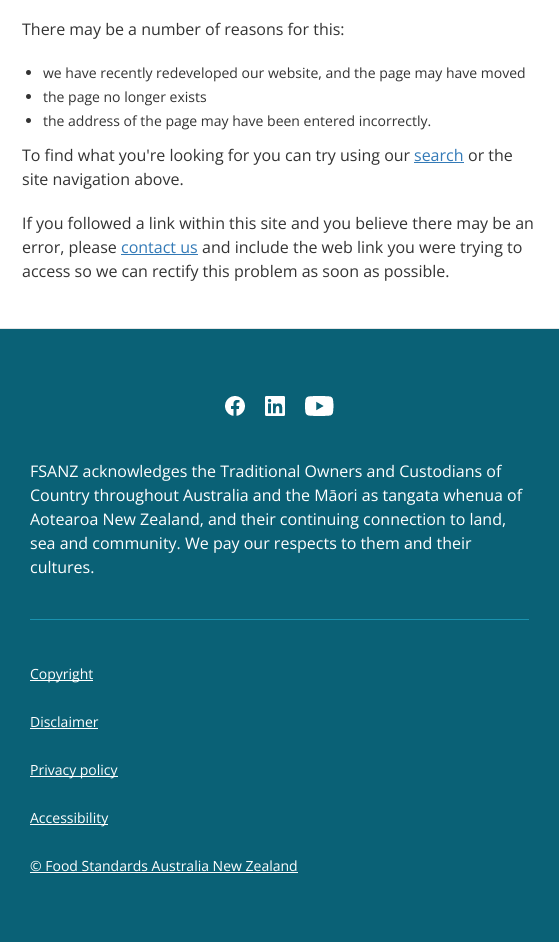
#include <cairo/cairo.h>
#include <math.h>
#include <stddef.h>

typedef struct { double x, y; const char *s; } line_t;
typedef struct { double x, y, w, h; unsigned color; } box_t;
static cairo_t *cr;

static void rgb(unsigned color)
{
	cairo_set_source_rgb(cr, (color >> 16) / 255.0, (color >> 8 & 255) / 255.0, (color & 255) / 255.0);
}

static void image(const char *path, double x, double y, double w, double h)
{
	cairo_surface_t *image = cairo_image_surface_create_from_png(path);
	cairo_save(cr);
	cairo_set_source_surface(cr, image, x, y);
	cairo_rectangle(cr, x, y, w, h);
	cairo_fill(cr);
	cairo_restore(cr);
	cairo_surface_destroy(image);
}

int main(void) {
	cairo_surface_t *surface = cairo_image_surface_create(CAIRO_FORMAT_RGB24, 559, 942);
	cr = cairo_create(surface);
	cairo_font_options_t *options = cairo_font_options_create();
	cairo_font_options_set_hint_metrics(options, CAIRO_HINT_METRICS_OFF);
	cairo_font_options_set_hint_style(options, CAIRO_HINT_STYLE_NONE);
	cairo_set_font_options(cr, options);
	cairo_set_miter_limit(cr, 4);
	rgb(0xffffff);
	cairo_paint(cr);
	rgb(0x333333);
	cairo_arc(cr, 28.5, 72.5, 2.5, 0, 2 * M_PI);
	cairo_fill(cr);
	cairo_arc(cr, 28.5, 96.5, 2.5, 0, 2 * M_PI);
	cairo_fill(cr);
	cairo_arc(cr, 28.5, 120.5, 2.5, 0, 2 * M_PI);
	cairo_fill(cr);
	{
		static const box_t items[] = {
			{414, 162, 50, 1, 0x337ab7},
			{121, 254, 77, 1, 0x337ab7},
			{0, 329, 559, 613, 0x0a6176},
			{0, 328, 559, 1, 0xe5e5e5},
		};
		for (size_t i = 0; i < sizeof items / sizeof *items; i++) {
			rgb(items[i].color);
			cairo_rectangle(cr, items[i].x, items[i].y, items[i].w, items[i].h);
			cairo_fill(cr);
		}
	}
	image("img/1.png", 225, 396, 20, 20);
	image("img/2.png", 265, 396, 20, 20);
	image("img/3.png", 305, 396, 29, 20);
	{
		static const box_t items[] = {
			{30, 619, 499, 1, 0x1992af},
			{30, 680, 63, 1, 0xffffff},
			{30, 728, 68, 1, 0xffffff},
			{30, 776, 88, 1, 0xffffff},
			{30, 824, 78, 1, 0xffffff},
			{30, 872, 268, 1, 0xffffff},
		};
		for (size_t i = 0; i < sizeof items / sizeof *items; i++) {
			rgb(items[i].color);
			cairo_rectangle(cr, items[i].x, items[i].y, items[i].w, items[i].h);
			cairo_fill(cr);
		}
	}
	cairo_select_font_face(cr, "Open Sans", CAIRO_FONT_SLANT_NORMAL, CAIRO_FONT_WEIGHT_NORMAL);
	cairo_set_font_size(cr, 16);
	rgb(0x333333);
	cairo_move_to(cr, 22, 35);
	cairo_show_text(cr, "There may be a number of reasons for this:");
	cairo_set_font_size(cr, 14);
	{
		static const line_t items[] = {
			{43, 78, "we have recently redeveloped our website, and the page may have moved"},
			{43, 102, "the page no longer exists"},
			{43, 126, "the address of the page may have been entered incorrectly."},
		};
		for (size_t i = 0; i < sizeof items / sizeof *items; i++) {
			cairo_move_to(cr, items[i].x, items[i].y);
			cairo_show_text(cr, items[i].s);
		}
	}
	cairo_set_font_size(cr, 16);
	cairo_move_to(cr, 22, 161);
	cairo_show_text(cr, "To find what you're looking for you can try using our");
	rgb(0x337ab7);
	cairo_move_to(cr, 414, 161);
	cairo_show_text(cr, "search");
	rgb(0x333333);
	{
		static const line_t items[] = {
			{468, 161, "or the"},
			{22, 185, "site navigation above."},
			{22, 229, "If you followed a link within this site and you believe there may be an"},
			{22, 253, "error, please"},
		};
		for (size_t i = 0; i < sizeof items / sizeof *items; i++) {
			cairo_move_to(cr, items[i].x, items[i].y);
			cairo_show_text(cr, items[i].s);
		}
	}
	rgb(0x337ab7);
	cairo_move_to(cr, 121, 253);
	cairo_show_text(cr, "contact us");
	rgb(0x333333);
	cairo_move_to(cr, 202, 253);
	cairo_show_text(cr, "and include the web link you were trying to");
	cairo_move_to(cr, 22, 277);
	cairo_show_text(cr, "access so we can rectify this problem as soon as possible.");
	rgb(0xffffff);
	{
		static const line_t items[] = {
			{30, 477, "FSANZ acknowledges the Traditional Owners and Custodians of"},
			{30, 501, "Country throughout Australia and the Māori as tangata whenua of"},
			{30, 525, "Aotearoa New Zealand, and their continuing connection to land,"},
			{30, 549, "sea and community. We pay our respects to them and their"},
			{30, 573, "cultures."},
		};
		for (size_t i = 0; i < sizeof items / sizeof *items; i++) {
			cairo_move_to(cr, items[i].x, items[i].y);
			cairo_show_text(cr, items[i].s);
		}
	}
	cairo_set_font_size(cr, 14);
	{
		static const line_t items[] = {
			{30, 679, "Copyright"},
			{30, 727, "Disclaimer"},
			{30, 775, "Privacy policy"},
			{30, 823, "Accessibility"},
			{30, 871, "© Food Standards Australia New Zealand"},
		};
		for (size_t i = 0; i < sizeof items / sizeof *items; i++) {
			cairo_move_to(cr, items[i].x, items[i].y);
			cairo_show_text(cr, items[i].s);
		}
	}
	cairo_surface_write_to_png(surface, "page.png");
	cairo_font_options_destroy(options);
	cairo_destroy(cr);
	cairo_surface_destroy(surface);
	return 0;
}
